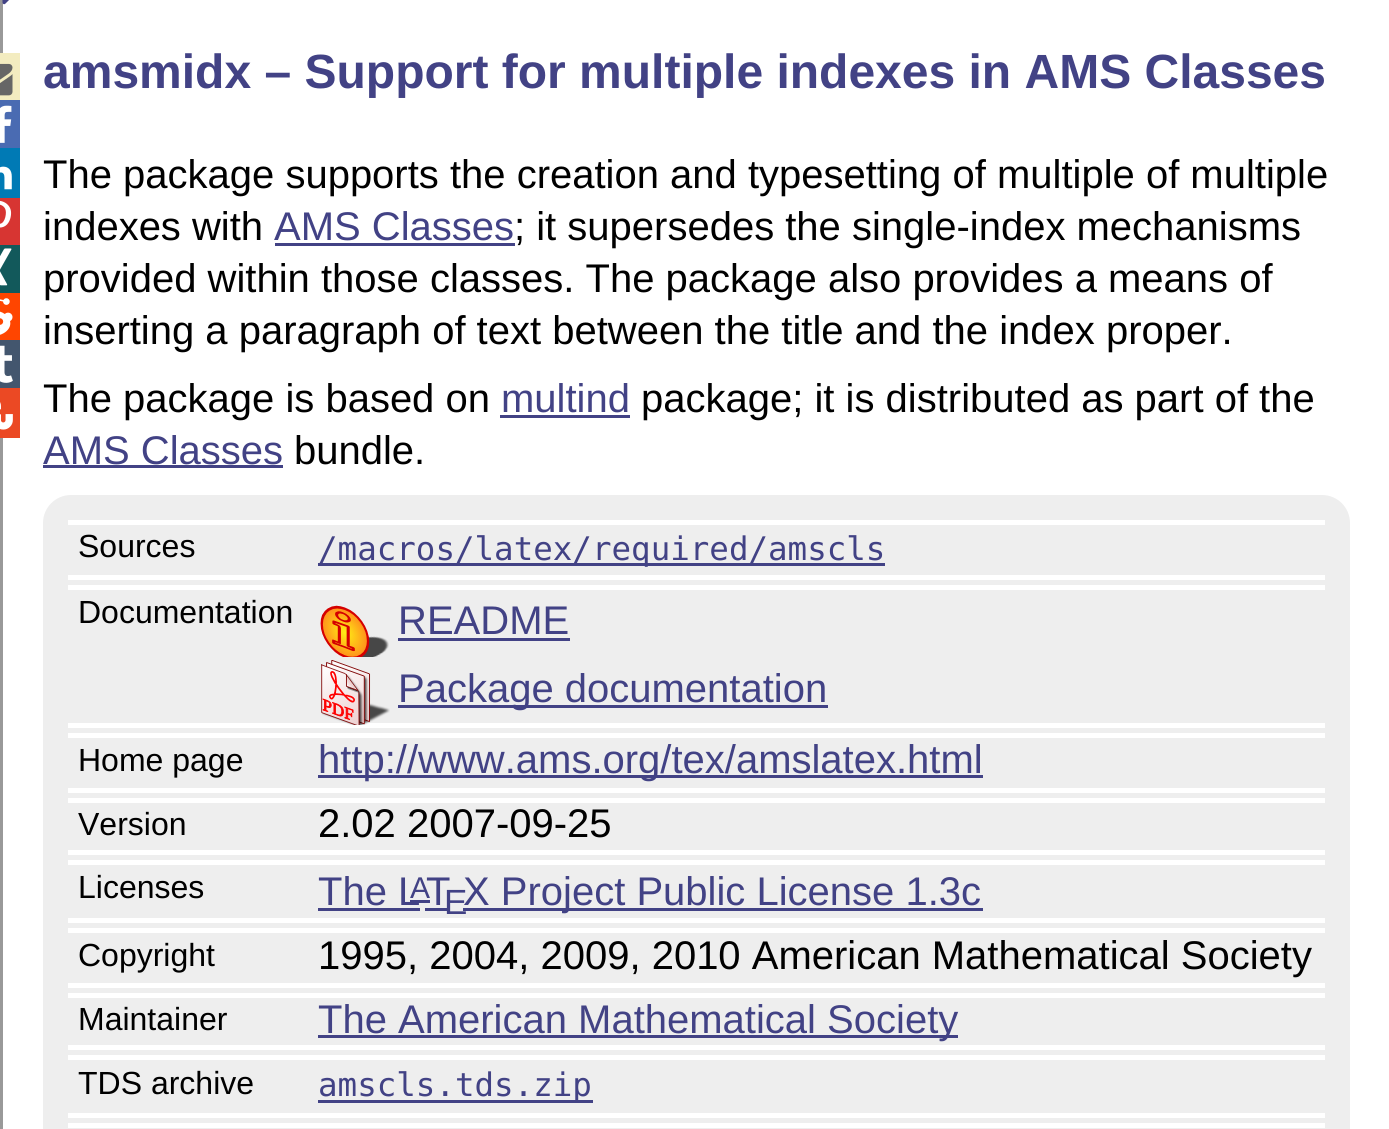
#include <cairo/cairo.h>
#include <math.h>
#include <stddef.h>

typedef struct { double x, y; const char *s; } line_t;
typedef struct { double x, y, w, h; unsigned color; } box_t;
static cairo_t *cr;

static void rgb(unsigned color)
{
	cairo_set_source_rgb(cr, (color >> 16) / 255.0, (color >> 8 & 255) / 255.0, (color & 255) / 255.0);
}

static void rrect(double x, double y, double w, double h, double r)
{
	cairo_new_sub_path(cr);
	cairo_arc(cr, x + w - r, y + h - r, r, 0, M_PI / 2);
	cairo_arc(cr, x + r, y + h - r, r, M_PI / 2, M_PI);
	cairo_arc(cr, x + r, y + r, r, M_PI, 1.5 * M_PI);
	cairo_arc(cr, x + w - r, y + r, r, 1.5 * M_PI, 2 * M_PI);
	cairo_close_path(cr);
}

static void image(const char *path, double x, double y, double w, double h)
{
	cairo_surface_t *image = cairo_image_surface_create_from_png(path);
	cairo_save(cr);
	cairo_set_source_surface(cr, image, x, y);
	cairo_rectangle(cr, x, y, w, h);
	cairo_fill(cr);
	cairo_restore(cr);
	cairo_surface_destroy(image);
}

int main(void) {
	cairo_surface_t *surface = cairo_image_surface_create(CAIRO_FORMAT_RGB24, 1389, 1129);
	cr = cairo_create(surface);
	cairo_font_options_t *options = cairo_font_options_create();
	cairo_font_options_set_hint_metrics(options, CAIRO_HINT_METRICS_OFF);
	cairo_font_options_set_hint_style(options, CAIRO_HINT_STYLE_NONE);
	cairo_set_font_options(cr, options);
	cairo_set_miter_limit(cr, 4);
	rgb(0xffffff);
	cairo_paint(cr);
	rgb(0x999999);
	cairo_rectangle(cr, 0, 0, 3, 1129);
	cairo_fill(cr);
	image("img/1.png", 2, 0, 7, 5);
	rgb(0xf3ecc0);
	cairo_rectangle(cr, 0, 53, 20, 47);
	cairo_fill(cr);
	image("img/2.png", 0, 63, 13, 33);
	rgb(0x4a6bb2);
	cairo_rectangle(cr, 0, 100, 20, 48);
	cairo_fill(cr);
	image("img/3.png", 0, 105, 12, 38);
	rgb(0x007ab5);
	cairo_rectangle(cr, 0, 148, 20, 50);
	cairo_fill(cr);
	image("img/4.png", 0, 166, 12, 24);
	rgb(0xd73532);
	cairo_rectangle(cr, 0, 198, 20, 47);
	cairo_fill(cr);
	image("img/5.png", 0, 200, 12, 28);
	rgb(0x12595b);
	cairo_rectangle(cr, 0, 245, 20, 48);
	cairo_fill(cr);
	image("img/6.png", 0, 248, 12, 38);
	rgb(0xff4500);
	cairo_rectangle(cr, 0, 293, 20, 47);
	cairo_fill(cr);
	image("img/7.png", 0, 298, 13, 37);
	rgb(0x43566e);
	cairo_rectangle(cr, 0, 340, 20, 48);
	cairo_fill(cr);
	image("img/8.png", 0, 345, 13, 38);
	rgb(0xeb4924);
	cairo_rectangle(cr, 0, 388, 20, 50);
	cairo_fill(cr);
	image("img/9.png", 0, 402, 13, 28);
	{
		static const box_t items[] = {
			{275, 243, 240, 3, 0x424285},
			{500, 415, 130, 3, 0x424285},
			{43, 465, 240, 3, 0x424285},
		};
		for (size_t i = 0; i < sizeof items / sizeof *items; i++) {
			rgb(items[i].color);
			cairo_rectangle(cr, items[i].x, items[i].y, items[i].w, items[i].h);
			cairo_fill(cr);
		}
	}
	rgb(0xeeeeee);
	rrect(43, 495, 1307, 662, 28);
	cairo_fill(cr);
	{
		static const box_t items[] = {
			{68, 520, 1257, 5, 0xffffff},
			{68, 575, 1257, 5, 0xffffff},
			{318, 563, 567, 3, 0x424285},
			{68, 585, 1257, 5, 0xffffff},
			{68, 723, 1257, 5, 0xffffff},
		};
		for (size_t i = 0; i < sizeof items / sizeof *items; i++) {
			rgb(items[i].color);
			cairo_rectangle(cr, items[i].x, items[i].y, items[i].w, items[i].h);
			cairo_fill(cr);
		}
	}
	image("img/10.png", 320, 605, 69, 52);
	rgb(0x424285);
	cairo_rectangle(cr, 398, 638, 172, 3);
	cairo_fill(cr);
	image("img/11.png", 321, 660, 69, 65);
	{
		static const box_t items[] = {
			{398, 705, 430, 3, 0x424285},
			{68, 733, 1257, 5, 0xffffff},
			{68, 788, 1257, 5, 0xffffff},
			{318, 775, 665, 3, 0x424285},
			{68, 798, 1257, 5, 0xffffff},
			{68, 850, 1257, 5, 0xffffff},
			{68, 860, 1257, 5, 0xffffff},
			{68, 918, 1257, 5, 0xffffff},
			{318, 908, 102, 3, 0x424285},
			{410, 900, 20, 3, 0x424285},
			{425, 908, 25, 3, 0x424285},
			{463, 908, 520, 3, 0x424285},
			{68, 928, 1257, 5, 0xffffff},
			{68, 983, 1257, 5, 0xffffff},
			{68, 993, 1257, 5, 0xffffff},
			{68, 1045, 1257, 5, 0xffffff},
			{318, 1035, 640, 3, 0x424285},
			{68, 1055, 1257, 5, 0xffffff},
			{68, 1113, 1257, 5, 0xffffff},
			{318, 1100, 275, 3, 0x424285},
			{68, 1123, 1257, 5, 0xffffff},
		};
		for (size_t i = 0; i < sizeof items / sizeof *items; i++) {
			rgb(items[i].color);
			cairo_rectangle(cr, items[i].x, items[i].y, items[i].w, items[i].h);
			cairo_fill(cr);
		}
	}
	cairo_select_font_face(cr, "Liberation Sans", CAIRO_FONT_SLANT_NORMAL, CAIRO_FONT_WEIGHT_BOLD);
	cairo_set_font_size(cr, 48);
	rgb(0x424285);
	cairo_move_to(cr, 43, 88);
	cairo_show_text(cr, "amsmidx – Support for multiple indexes in AMS Classes");
	cairo_select_font_face(cr, "Liberation Sans", CAIRO_FONT_SLANT_NORMAL, CAIRO_FONT_WEIGHT_NORMAL);
	cairo_set_font_size(cr, 40);
	rgb(0x000000);
	cairo_move_to(cr, 43, 188);
	cairo_show_text(cr, "The package supports the creation and typesetting of multiple of multiple");
	cairo_move_to(cr, 43, 240);
	cairo_show_text(cr, "indexes with");
	rgb(0x424285);
	cairo_move_to(cr, 274, 240);
	cairo_show_text(cr, "AMS Classes");
	rgb(0x000000);
	{
		static const line_t items[] = {
			{514, 240, "; it supersedes the single-index mechanisms"},
			{43, 292, "provided within those classes. The package also provides a means of"},
			{43, 344, "inserting a paragraph of text between the title and the index proper."},
			{43, 412, "The package is based on"},
		};
		for (size_t i = 0; i < sizeof items / sizeof *items; i++) {
			cairo_move_to(cr, items[i].x, items[i].y);
			cairo_show_text(cr, items[i].s);
		}
	}
	rgb(0x424285);
	cairo_move_to(cr, 501, 412);
	cairo_show_text(cr, "multind");
	rgb(0x000000);
	cairo_move_to(cr, 641, 412);
	cairo_show_text(cr, "package; it is distributed as part of the");
	rgb(0x424285);
	cairo_move_to(cr, 43, 464);
	cairo_show_text(cr, "AMS Classes");
	rgb(0x000000);
	cairo_move_to(cr, 294, 464);
	cairo_show_text(cr, "bundle.");
	cairo_set_font_size(cr, 32);
	cairo_move_to(cr, 78, 557);
	cairo_show_text(cr, "Sources");
	cairo_select_font_face(cr, "DejaVu Sans Mono", CAIRO_FONT_SLANT_NORMAL, CAIRO_FONT_WEIGHT_NORMAL);
	cairo_set_font_size(cr, 32.5);
	rgb(0x424285);
	cairo_move_to(cr, 318, 560);
	cairo_show_text(cr, "/macros/latex/required/amscls");
	cairo_select_font_face(cr, "Liberation Sans", CAIRO_FONT_SLANT_NORMAL, CAIRO_FONT_WEIGHT_NORMAL);
	cairo_set_font_size(cr, 32);
	rgb(0x000000);
	cairo_move_to(cr, 78, 623);
	cairo_show_text(cr, "Documentation");
	cairo_set_font_size(cr, 40);
	rgb(0x424285);
	cairo_move_to(cr, 398, 634);
	cairo_show_text(cr, "README");
	cairo_move_to(cr, 398, 702);
	cairo_show_text(cr, "Package documentation");
	cairo_set_font_size(cr, 32);
	rgb(0x000000);
	cairo_move_to(cr, 78, 771);
	cairo_show_text(cr, "Home page");
	cairo_set_font_size(cr, 40);
	rgb(0x424285);
	cairo_move_to(cr, 318, 773);
	cairo_show_text(cr, "http://www.ams.org/tex/amslatex.html");
	cairo_set_font_size(cr, 32);
	rgb(0x000000);
	cairo_move_to(cr, 78, 835);
	cairo_show_text(cr, "Version");
	cairo_set_font_size(cr, 40);
	cairo_move_to(cr, 318, 837);
	cairo_show_text(cr, "2.02 2007-09-25");
	cairo_set_font_size(cr, 32);
	cairo_move_to(cr, 78, 898);
	cairo_show_text(cr, "Licenses");
	cairo_set_font_size(cr, 40);
	rgb(0x424285);
	cairo_move_to(cr, 318, 905);
	cairo_show_text(cr, "The L");
	cairo_set_font_size(cr, 30);
	cairo_move_to(cr, 410, 898);
	cairo_show_text(cr, "A");
	cairo_set_font_size(cr, 40);
	cairo_move_to(cr, 426, 905);
	cairo_show_text(cr, "T");
	cairo_set_font_size(cr, 35);
	cairo_move_to(cr, 444, 914);
	cairo_show_text(cr, "E");
	cairo_set_font_size(cr, 40);
	cairo_move_to(cr, 463, 905);
	cairo_show_text(cr, "X Project Public License 1.3c");
	cairo_set_font_size(cr, 32);
	rgb(0x000000);
	cairo_move_to(cr, 78, 966);
	cairo_show_text(cr, "Copyright");
	cairo_set_font_size(cr, 40);
	cairo_move_to(cr, 318, 969);
	cairo_show_text(cr, "1995, 2004, 2009, 2010 American Mathematical Society");
	cairo_set_font_size(cr, 32);
	cairo_move_to(cr, 78, 1030);
	cairo_show_text(cr, "Maintainer");
	cairo_set_font_size(cr, 40);
	rgb(0x424285);
	cairo_move_to(cr, 318, 1033);
	cairo_show_text(cr, "The American Mathematical Society");
	cairo_set_font_size(cr, 32);
	rgb(0x000000);
	cairo_move_to(cr, 78, 1094);
	cairo_show_text(cr, "TDS archive");
	cairo_select_font_face(cr, "DejaVu Sans Mono", CAIRO_FONT_SLANT_NORMAL, CAIRO_FONT_WEIGHT_NORMAL);
	cairo_set_font_size(cr, 32.5);
	rgb(0x424285);
	cairo_move_to(cr, 318, 1096);
	cairo_show_text(cr, "amscls.tds.zip");
	cairo_surface_write_to_png(surface, "page.png");
	cairo_font_options_destroy(options);
	cairo_destroy(cr);
	cairo_surface_destroy(surface);
	return 0;
}
